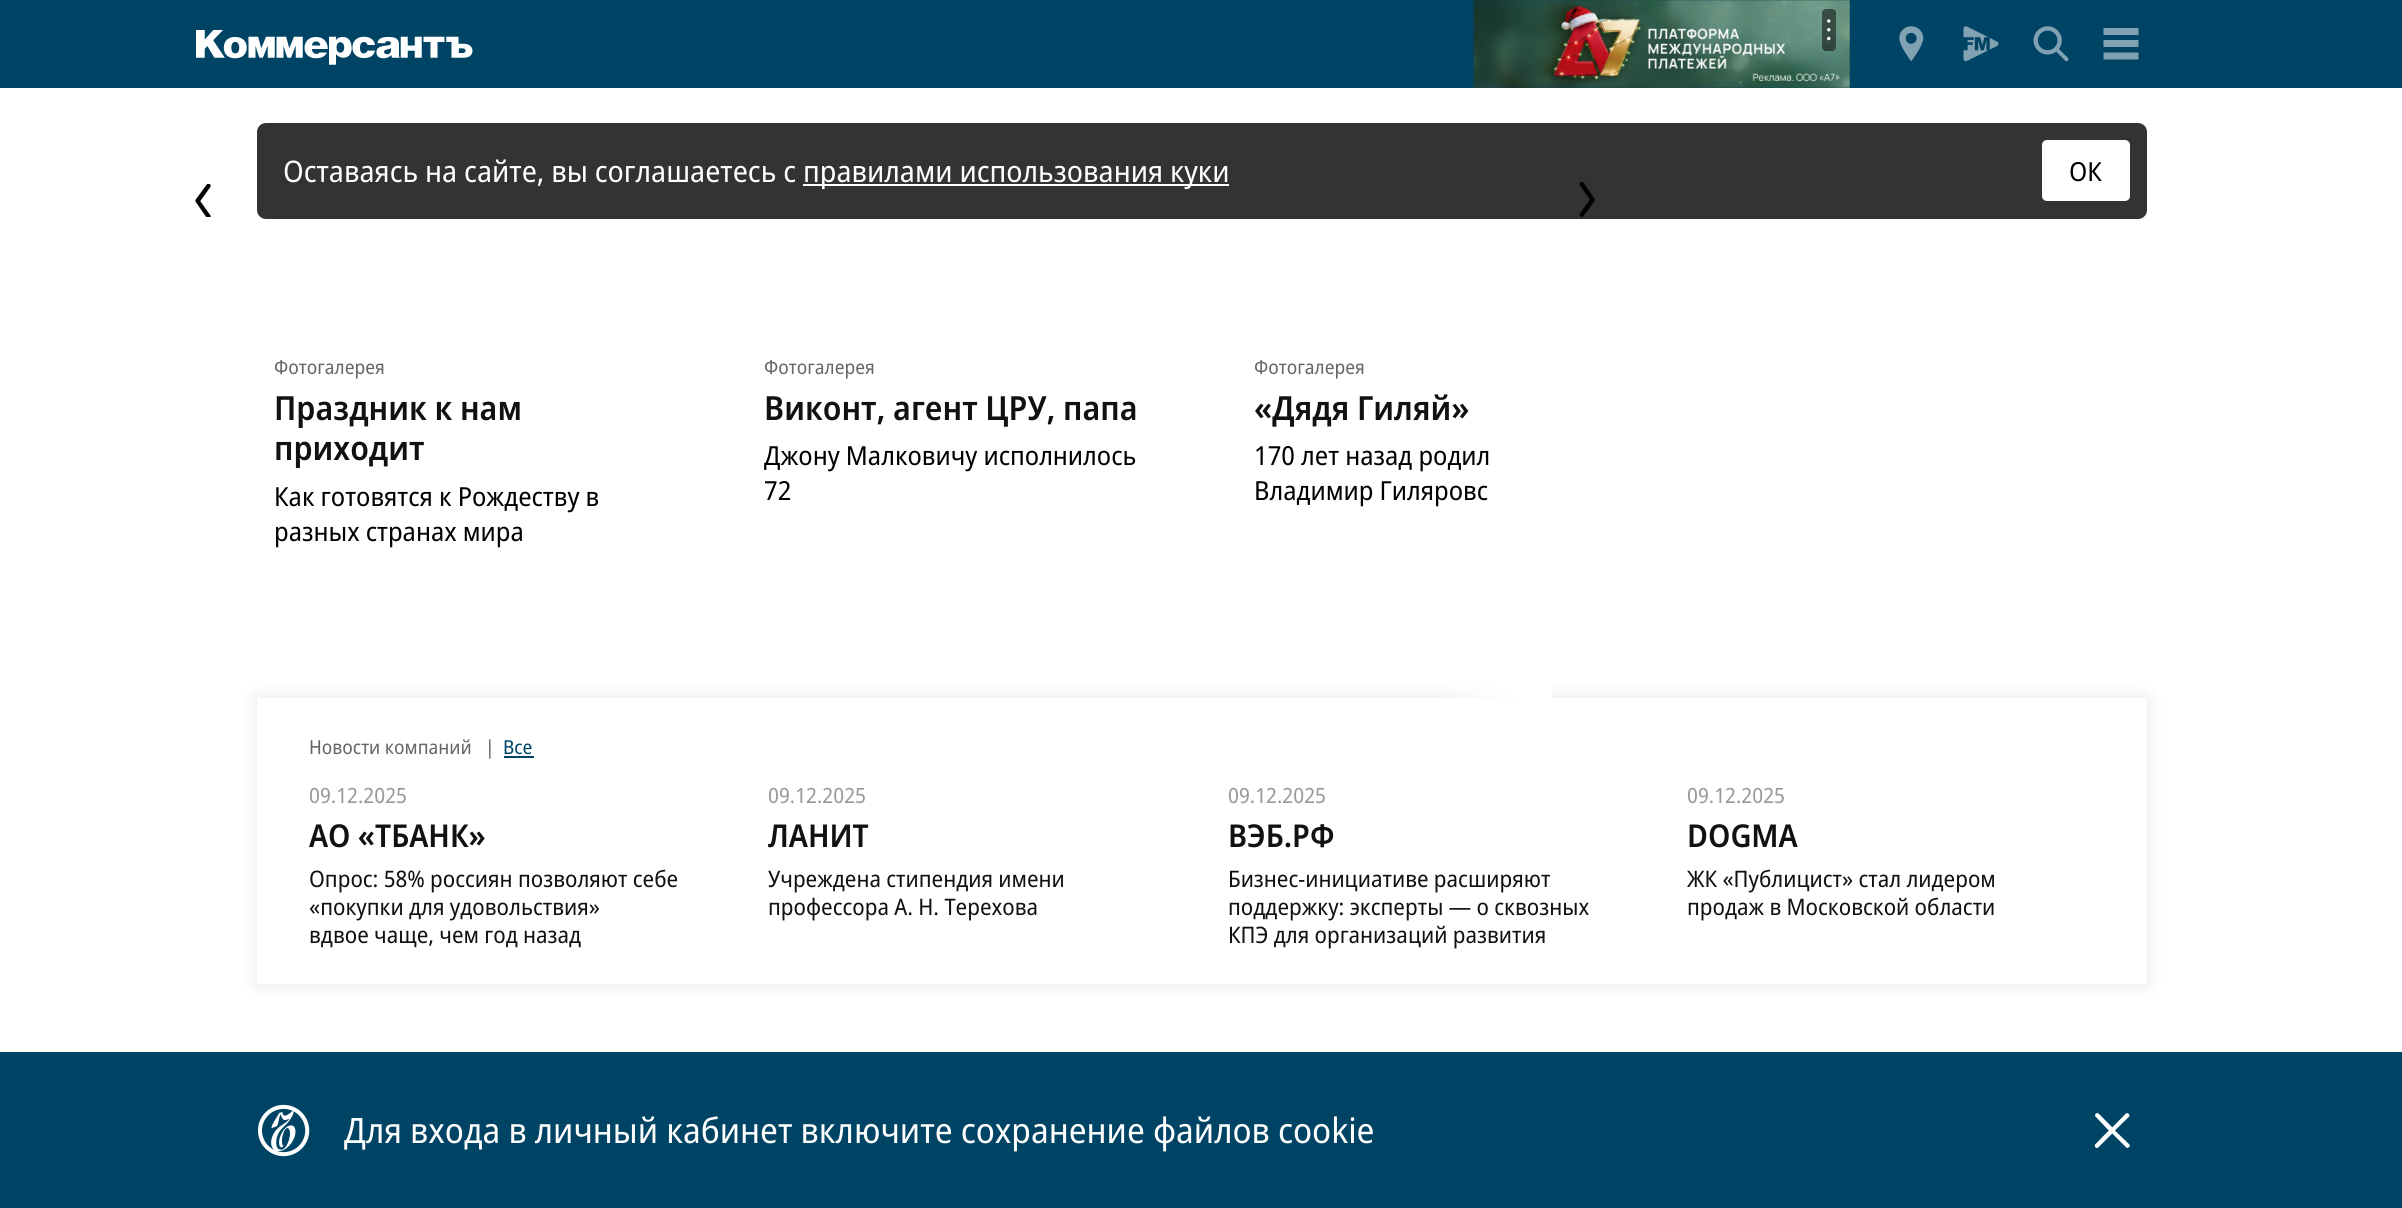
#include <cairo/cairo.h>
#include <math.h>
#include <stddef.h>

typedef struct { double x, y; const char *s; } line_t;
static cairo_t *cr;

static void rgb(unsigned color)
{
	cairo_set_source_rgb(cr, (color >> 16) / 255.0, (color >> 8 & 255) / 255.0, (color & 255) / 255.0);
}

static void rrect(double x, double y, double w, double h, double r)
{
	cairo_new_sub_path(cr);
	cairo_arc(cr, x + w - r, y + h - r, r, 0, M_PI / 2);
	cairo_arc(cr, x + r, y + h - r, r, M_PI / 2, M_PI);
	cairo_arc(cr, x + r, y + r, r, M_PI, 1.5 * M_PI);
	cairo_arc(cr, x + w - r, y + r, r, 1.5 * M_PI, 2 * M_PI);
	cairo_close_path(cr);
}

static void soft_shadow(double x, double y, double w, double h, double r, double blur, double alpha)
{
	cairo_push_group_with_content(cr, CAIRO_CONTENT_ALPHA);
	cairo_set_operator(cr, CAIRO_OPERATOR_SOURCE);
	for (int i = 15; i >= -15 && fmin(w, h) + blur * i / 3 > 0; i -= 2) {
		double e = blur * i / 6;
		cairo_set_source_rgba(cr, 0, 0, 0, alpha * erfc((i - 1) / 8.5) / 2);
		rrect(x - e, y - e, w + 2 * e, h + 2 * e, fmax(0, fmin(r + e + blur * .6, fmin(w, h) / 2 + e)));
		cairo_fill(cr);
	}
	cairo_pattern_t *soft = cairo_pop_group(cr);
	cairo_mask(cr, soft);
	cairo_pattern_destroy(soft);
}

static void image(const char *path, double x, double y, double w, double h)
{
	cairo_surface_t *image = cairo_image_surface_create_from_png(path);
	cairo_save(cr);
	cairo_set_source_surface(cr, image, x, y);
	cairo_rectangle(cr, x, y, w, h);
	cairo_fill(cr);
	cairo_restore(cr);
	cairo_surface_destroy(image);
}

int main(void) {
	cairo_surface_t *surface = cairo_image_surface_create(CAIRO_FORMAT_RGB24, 2402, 1208);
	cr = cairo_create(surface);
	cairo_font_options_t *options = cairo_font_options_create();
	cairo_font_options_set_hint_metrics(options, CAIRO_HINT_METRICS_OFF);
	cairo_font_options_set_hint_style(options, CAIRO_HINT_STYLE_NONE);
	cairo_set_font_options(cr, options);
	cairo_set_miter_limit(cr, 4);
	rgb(0xffffff);
	cairo_paint(cr);
	rgb(0x000000);
	soft_shadow(257, 698, 1890, 286, 0, 9, 0.1);
	rgb(0xffffff);
	cairo_rectangle(cr, 257, 698, 1890, 286);
	cairo_fill(cr);
	cairo_save(cr);
	cairo_rectangle(cr, 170, 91, 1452, 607);
	cairo_clip(cr);
	cairo_set_fill_rule(cr, CAIRO_FILL_RULE_EVEN_ODD);
	cairo_new_path(cr);
	cairo_move_to(cr, 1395, 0);
	cairo_line_to(cr, 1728, 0);
	cairo_line_to(cr, 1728, 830);
	cairo_line_to(cr, 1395, 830);
	cairo_close_path(cr);
	cairo_move_to(cr, 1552, 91);
	cairo_line_to(cr, 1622, 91);
	cairo_line_to(cr, 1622, 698);
	cairo_line_to(cr, 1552, 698);
	cairo_close_path(cr);
	cairo_clip(cr);
	rgb(0xffffff);
	soft_shadow(1474, 39, 175, 712, 0, 26, 1);
	cairo_restore(cr);
	rgb(0x004465);
	cairo_rectangle(cr, 0, 0, 2402, 88);
	cairo_fill(cr);
	image("img/1.png", 196, 30, 277, 35);
	image("img/2.png", 1473, 0, 377, 88);
	cairo_set_source_rgba(cr, 0, 0, 0, 0.5);
	rrect(1822, 9, 14, 42, 4);
	cairo_fill(cr);
	image("img/3.png", 1827, 19, 4, 22);
	image("img/4.png", 1899, 26, 25, 36);
	image("img/5.png", 1963, 26, 36, 36);
	image("img/6.png", 2033, 26, 36, 36);
	rgb(0x80a2b2);
	cairo_new_path(cr);
	cairo_move_to(cr, 2138.5, 28);
	cairo_line_to(cr, 2138.5, 35);
	cairo_line_to(cr, 2103.5, 35);
	cairo_line_to(cr, 2103.5, 28);
	cairo_close_path(cr);
	cairo_move_to(cr, 2103.5, 47);
	cairo_line_to(cr, 2138.5, 47);
	cairo_line_to(cr, 2138.5, 40);
	cairo_line_to(cr, 2103.5, 40);
	cairo_close_path(cr);
	cairo_move_to(cr, 2103.5, 59.5);
	cairo_line_to(cr, 2138.5, 59.5);
	cairo_line_to(cr, 2138.5, 52.5);
	cairo_line_to(cr, 2103.5, 52.5);
	cairo_close_path(cr);
	cairo_fill(cr);
	image("img/8.png", 1579, 182, 16, 35);
	cairo_set_source_rgba(cr, 0, 0, 0, 0.8);
	rrect(257, 123, 1890, 96, 9);
	cairo_fill(cr);
	rgb(0xffffff);
	cairo_rectangle(cr, 803, 184, 426, 2);
	cairo_fill(cr);
	rrect(2042, 140, 88, 61, 5);
	cairo_fill(cr);
	image("img/7.png", 195, 184, 16, 33);
	rgb(0x004465);
	cairo_rectangle(cr, 504, 756, 30, 2);
	cairo_fill(cr);
	cairo_rectangle(cr, 0, 1052, 2402, 156);
	cairo_fill(cr);
	image("img/9.png", 258, 1104, 52, 53);
	image("img/10.png", 2094, 1113, 36, 35);
	cairo_select_font_face(cr, "Noto Sans", CAIRO_FONT_SLANT_NORMAL, CAIRO_FONT_WEIGHT_NORMAL);
	cairo_set_font_size(cr, 29.75);
	rgb(0xffffff);
	cairo_move_to(cr, 283, 182);
	cairo_show_text(cr, "Оставаясь на сайте, вы соглашаетесь с");
	cairo_move_to(cr, 803, 182);
	cairo_show_text(cr, "правилами использования куки");
	cairo_set_font_size(cr, 26.25);
	rgb(0x000000);
	cairo_move_to(cr, 2069, 181);
	cairo_show_text(cr, "ОК");
	cairo_set_font_size(cr, 19.25);
	rgb(0x666666);
	cairo_move_to(cr, 274, 374);
	cairo_show_text(cr, "Фотогалерея");
	cairo_select_font_face(cr, "Noto Sans SemiBold", CAIRO_FONT_SLANT_NORMAL, CAIRO_FONT_WEIGHT_NORMAL);
	cairo_set_font_size(cr, 33.25);
	rgb(0x111111);
	cairo_move_to(cr, 274, 420);
	cairo_show_text(cr, "Праздник к нам");
	cairo_move_to(cr, 274, 460);
	cairo_show_text(cr, "приходит");
	cairo_select_font_face(cr, "Noto Sans", CAIRO_FONT_SLANT_NORMAL, CAIRO_FONT_WEIGHT_NORMAL);
	cairo_set_font_size(cr, 26.25);
	rgb(0x000000);
	cairo_move_to(cr, 274, 506);
	cairo_show_text(cr, "Как готовятся к Рождеству в");
	cairo_move_to(cr, 274, 541);
	cairo_show_text(cr, "разных странах мира");
	cairo_set_font_size(cr, 19.25);
	rgb(0x666666);
	cairo_move_to(cr, 764, 374);
	cairo_show_text(cr, "Фотогалерея");
	cairo_select_font_face(cr, "Noto Sans SemiBold", CAIRO_FONT_SLANT_NORMAL, CAIRO_FONT_WEIGHT_NORMAL);
	cairo_set_font_size(cr, 33.25);
	rgb(0x111111);
	cairo_move_to(cr, 764, 420);
	cairo_show_text(cr, "Виконт, агент ЦРУ, папа");
	cairo_select_font_face(cr, "Noto Sans", CAIRO_FONT_SLANT_NORMAL, CAIRO_FONT_WEIGHT_NORMAL);
	cairo_set_font_size(cr, 26.25);
	rgb(0x000000);
	cairo_move_to(cr, 764, 465);
	cairo_show_text(cr, "Джону Малковичу исполнилось");
	cairo_move_to(cr, 764, 500);
	cairo_show_text(cr, "72");
	cairo_set_font_size(cr, 19.25);
	rgb(0x666666);
	cairo_move_to(cr, 1254, 374);
	cairo_show_text(cr, "Фотогалерея");
	cairo_select_font_face(cr, "Noto Sans SemiBold", CAIRO_FONT_SLANT_NORMAL, CAIRO_FONT_WEIGHT_NORMAL);
	cairo_set_font_size(cr, 33.25);
	rgb(0x111111);
	cairo_move_to(cr, 1254, 420);
	cairo_show_text(cr, "«Дядя Гиляй»");
	cairo_select_font_face(cr, "Noto Sans", CAIRO_FONT_SLANT_NORMAL, CAIRO_FONT_WEIGHT_NORMAL);
	cairo_set_font_size(cr, 26.25);
	rgb(0x000000);
	cairo_move_to(cr, 1254, 465);
	cairo_show_text(cr, "170 лет назад родил");
	cairo_move_to(cr, 1254, 500);
	cairo_show_text(cr, "Владимир Гиляровс");
	cairo_set_font_size(cr, 19.25);
	rgb(0x666666);
	cairo_move_to(cr, 309, 754);
	cairo_show_text(cr, "Новости компаний");
	cairo_move_to(cr, 485, 754);
	cairo_show_text(cr, "|");
	rgb(0x004465);
	cairo_move_to(cr, 503, 754);
	cairo_show_text(cr, "Все");
	cairo_set_font_size(cr, 21);
	rgb(0x999999);
	cairo_move_to(cr, 309, 803);
	cairo_show_text(cr, "09.12.2025");
	cairo_select_font_face(cr, "Noto Sans SemiBold", CAIRO_FONT_SLANT_NORMAL, CAIRO_FONT_WEIGHT_NORMAL);
	cairo_set_font_size(cr, 31.5);
	rgb(0x111111);
	cairo_move_to(cr, 309, 847);
	cairo_show_text(cr, "АО «ТБАНК»");
	cairo_select_font_face(cr, "Noto Sans", CAIRO_FONT_SLANT_NORMAL, CAIRO_FONT_WEIGHT_NORMAL);
	cairo_set_font_size(cr, 22.75);
	{
		static const line_t items[] = {
			{309, 887, "Опрос: 58% россиян позволяют себе"},
			{309, 915, "«покупки для удовольствия»"},
			{309, 943, "вдвое чаще, чем год назад"},
		};
		for (size_t i = 0; i < sizeof items / sizeof *items; i++) {
			cairo_move_to(cr, items[i].x, items[i].y);
			cairo_show_text(cr, items[i].s);
		}
	}
	cairo_set_font_size(cr, 21);
	rgb(0x999999);
	cairo_move_to(cr, 768, 803);
	cairo_show_text(cr, "09.12.2025");
	cairo_select_font_face(cr, "Noto Sans SemiBold", CAIRO_FONT_SLANT_NORMAL, CAIRO_FONT_WEIGHT_NORMAL);
	cairo_set_font_size(cr, 31.5);
	rgb(0x111111);
	cairo_move_to(cr, 768, 847);
	cairo_show_text(cr, "ЛАНИТ");
	cairo_select_font_face(cr, "Noto Sans", CAIRO_FONT_SLANT_NORMAL, CAIRO_FONT_WEIGHT_NORMAL);
	cairo_set_font_size(cr, 22.75);
	cairo_move_to(cr, 768, 887);
	cairo_show_text(cr, "Учреждена стипендия имени");
	cairo_move_to(cr, 768, 915);
	cairo_show_text(cr, "профессора А. Н. Терехова");
	cairo_set_font_size(cr, 21);
	rgb(0x999999);
	cairo_move_to(cr, 1228, 803);
	cairo_show_text(cr, "09.12.2025");
	cairo_select_font_face(cr, "Noto Sans SemiBold", CAIRO_FONT_SLANT_NORMAL, CAIRO_FONT_WEIGHT_NORMAL);
	cairo_set_font_size(cr, 31.5);
	rgb(0x111111);
	cairo_move_to(cr, 1228, 847);
	cairo_show_text(cr, "ВЭБ.РФ");
	cairo_select_font_face(cr, "Noto Sans", CAIRO_FONT_SLANT_NORMAL, CAIRO_FONT_WEIGHT_NORMAL);
	cairo_set_font_size(cr, 22.75);
	{
		static const line_t items[] = {
			{1228, 887, "Бизнес-инициативе расширяют"},
			{1228, 915, "поддержку: эксперты — о сквозных"},
			{1228, 943, "КПЭ для организаций развития"},
		};
		for (size_t i = 0; i < sizeof items / sizeof *items; i++) {
			cairo_move_to(cr, items[i].x, items[i].y);
			cairo_show_text(cr, items[i].s);
		}
	}
	cairo_set_font_size(cr, 21);
	rgb(0x999999);
	cairo_move_to(cr, 1687, 803);
	cairo_show_text(cr, "09.12.2025");
	cairo_select_font_face(cr, "Noto Sans SemiBold", CAIRO_FONT_SLANT_NORMAL, CAIRO_FONT_WEIGHT_NORMAL);
	cairo_set_font_size(cr, 31.5);
	rgb(0x111111);
	cairo_move_to(cr, 1687, 847);
	cairo_show_text(cr, "DOGMA");
	cairo_select_font_face(cr, "Noto Sans", CAIRO_FONT_SLANT_NORMAL, CAIRO_FONT_WEIGHT_NORMAL);
	cairo_set_font_size(cr, 22.75);
	cairo_move_to(cr, 1687, 887);
	cairo_show_text(cr, "ЖК «Публицист» стал лидером");
	cairo_move_to(cr, 1687, 915);
	cairo_show_text(cr, "продаж в Московской области");
	cairo_set_font_size(cr, 35);
	rgb(0xffffff);
	cairo_move_to(cr, 344, 1143);
	cairo_show_text(cr, "Для входа в личный кабинет включите сохранение файлов cookie");
	cairo_surface_write_to_png(surface, "page.png");
	cairo_font_options_destroy(options);
	cairo_destroy(cr);
	cairo_surface_destroy(surface);
	return 0;
}
